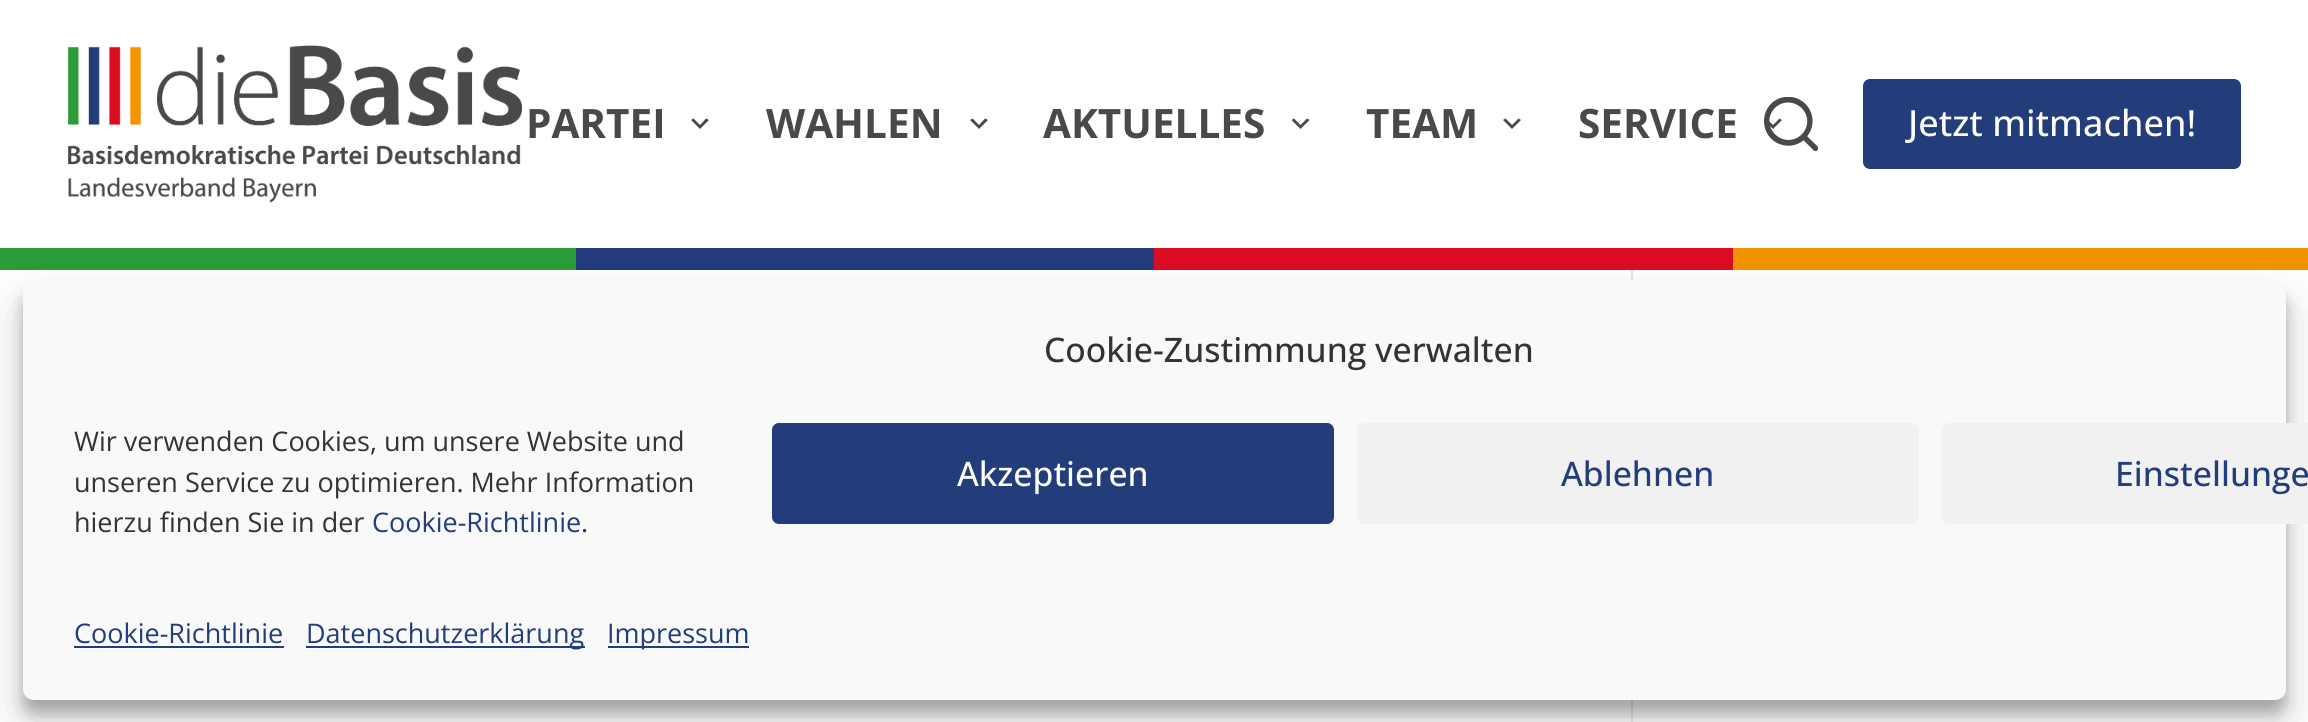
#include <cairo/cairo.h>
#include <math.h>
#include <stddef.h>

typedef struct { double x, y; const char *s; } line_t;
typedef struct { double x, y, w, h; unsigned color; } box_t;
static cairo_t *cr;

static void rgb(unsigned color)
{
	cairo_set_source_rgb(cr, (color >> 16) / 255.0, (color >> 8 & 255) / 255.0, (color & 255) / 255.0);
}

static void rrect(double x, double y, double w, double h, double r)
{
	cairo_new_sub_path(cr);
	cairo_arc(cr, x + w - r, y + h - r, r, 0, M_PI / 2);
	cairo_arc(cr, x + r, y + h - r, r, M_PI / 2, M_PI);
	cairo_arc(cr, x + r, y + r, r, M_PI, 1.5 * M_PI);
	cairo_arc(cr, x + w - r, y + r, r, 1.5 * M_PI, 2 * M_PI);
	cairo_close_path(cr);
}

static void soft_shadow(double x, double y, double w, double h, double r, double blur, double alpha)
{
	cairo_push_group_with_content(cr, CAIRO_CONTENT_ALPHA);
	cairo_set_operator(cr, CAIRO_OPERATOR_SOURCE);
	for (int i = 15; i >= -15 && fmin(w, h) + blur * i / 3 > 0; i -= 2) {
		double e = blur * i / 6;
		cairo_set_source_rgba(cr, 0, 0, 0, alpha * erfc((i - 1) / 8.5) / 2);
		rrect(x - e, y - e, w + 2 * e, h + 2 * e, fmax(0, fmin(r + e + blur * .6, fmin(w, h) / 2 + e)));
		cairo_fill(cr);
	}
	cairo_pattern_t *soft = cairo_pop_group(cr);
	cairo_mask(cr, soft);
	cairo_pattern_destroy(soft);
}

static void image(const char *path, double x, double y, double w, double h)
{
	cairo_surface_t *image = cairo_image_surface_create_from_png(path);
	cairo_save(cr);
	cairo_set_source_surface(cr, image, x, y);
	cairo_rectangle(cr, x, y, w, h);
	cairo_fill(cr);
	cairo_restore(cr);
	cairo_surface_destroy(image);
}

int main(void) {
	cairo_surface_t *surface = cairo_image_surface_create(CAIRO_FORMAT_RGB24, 2308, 722);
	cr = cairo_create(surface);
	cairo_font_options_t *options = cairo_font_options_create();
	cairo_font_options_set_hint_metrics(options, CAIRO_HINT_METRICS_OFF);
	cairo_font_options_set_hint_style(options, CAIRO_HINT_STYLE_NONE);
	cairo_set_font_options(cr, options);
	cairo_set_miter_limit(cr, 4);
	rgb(0xffffff);
	cairo_paint(cr);
	image("img/1.png", 68, 45, 454, 158);
	rgb(0x4a4949);
	cairo_new_path(cr);
	cairo_move_to(cr, 693.5, 118.5);
	cairo_line_to(cr, 700, 125);
	cairo_line_to(cr, 706, 118.5);
	cairo_line_to(cr, 709, 120);
	cairo_line_to(cr, 700, 129);
	cairo_line_to(cr, 691, 120);
	cairo_close_path(cr);
	cairo_fill(cr);
	cairo_new_path(cr);
	cairo_move_to(cr, 972.5, 118.5);
	cairo_line_to(cr, 979, 125);
	cairo_line_to(cr, 985, 118.5);
	cairo_line_to(cr, 988, 120);
	cairo_line_to(cr, 979, 129);
	cairo_line_to(cr, 970, 120);
	cairo_close_path(cr);
	cairo_fill(cr);
	cairo_new_path(cr);
	cairo_move_to(cr, 1294, 118.5);
	cairo_line_to(cr, 1300.5, 125);
	cairo_line_to(cr, 1307, 118.5);
	cairo_line_to(cr, 1309.5, 120);
	cairo_line_to(cr, 1300.5, 129);
	cairo_line_to(cr, 1291.5, 120);
	cairo_close_path(cr);
	cairo_fill(cr);
	cairo_new_path(cr);
	cairo_move_to(cr, 1505.5, 118.5);
	cairo_line_to(cr, 1512, 125);
	cairo_line_to(cr, 1518.5, 118.5);
	cairo_line_to(cr, 1521, 120);
	cairo_line_to(cr, 1512, 129);
	cairo_line_to(cr, 1503, 120);
	cairo_close_path(cr);
	cairo_fill(cr);
	cairo_new_path(cr);
	cairo_move_to(cr, 1766.5, 118.5);
	cairo_line_to(cr, 1773, 125);
	cairo_line_to(cr, 1779.5, 118.5);
	cairo_line_to(cr, 1782, 120);
	cairo_line_to(cr, 1773, 129);
	cairo_line_to(cr, 1764, 120);
	cairo_close_path(cr);
	cairo_fill(cr);
	image("img/2.png", 1764, 97, 54, 54);
	rgb(0x233c7a);
	rrect(1863, 79, 378, 90, 7);
	cairo_fill(cr);
	image("img/3.png", 0, 248, 2308, 22);
	rgb(0xe6eaef);
	cairo_rectangle(cr, 1631, 270, 2, 452);
	cairo_fill(cr);
	rgb(0x000000);
	soft_shadow(23, 295, 2263, 418, 11, 7, 0.23);
	soft_shadow(23, 304, 2263, 418, 11, 22.5, 0.19);
	rgb(0xf9f9f9);
	rrect(26.5, 284.5, 2256, 412, 7.5);
	cairo_fill_preserve(cr);
	cairo_set_line_width(cr, 7);
	cairo_stroke(cr);
	rgb(0x233c7a);
	rrect(773, 424, 560, 99, 6);
	cairo_fill_preserve(cr);
	cairo_set_line_width(cr, 2);
	cairo_stroke(cr);
	rgb(0xf1f1f1);
	rrect(1357, 423, 562, 101, 7);
	cairo_fill(cr);
	rrect(1942, 423, 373, 101, 7);
	cairo_fill(cr);
	{
		static const box_t items[] = {
			{74, 646, 210, 2, 0x233c7a},
			{306, 646, 279, 2, 0x233c7a},
			{608, 646, 141, 2, 0x233c7a},
		};
		for (size_t i = 0; i < sizeof items / sizeof *items; i++) {
			rgb(items[i].color);
			cairo_rectangle(cr, items[i].x, items[i].y, items[i].w, items[i].h);
			cairo_fill(cr);
		}
	}
	cairo_select_font_face(cr, "Open Sans", CAIRO_FONT_SLANT_NORMAL, CAIRO_FONT_WEIGHT_BOLD);
	cairo_set_font_size(cr, 40.5);
	rgb(0x4a4949);
	{
		static const line_t items[] = {
			{526, 138, "PARTEI"},
			{766, 138, "WAHLEN"},
			{1043, 138, "AKTUELLES"},
			{1366, 138, "TEAM"},
			{1578, 138, "SERVICE"},
		};
		for (size_t i = 0; i < sizeof items / sizeof *items; i++) {
			cairo_move_to(cr, items[i].x, items[i].y);
			cairo_show_text(cr, items[i].s);
		}
	}
	cairo_select_font_face(cr, "Open Sans Medium", CAIRO_FONT_SLANT_NORMAL, CAIRO_FONT_WEIGHT_NORMAL);
	cairo_set_font_size(cr, 36);
	rgb(0xffffff);
	cairo_move_to(cr, 1908, 136);
	cairo_show_text(cr, "Jetzt mitmachen!");
	cairo_set_font_size(cr, 33.75);
	rgb(0x333333);
	cairo_move_to(cr, 1044, 362);
	cairo_show_text(cr, "Cookie-Zustimmung verwalten");
	cairo_select_font_face(cr, "Open Sans", CAIRO_FONT_SLANT_NORMAL, CAIRO_FONT_WEIGHT_NORMAL);
	cairo_set_font_size(cr, 27);
	{
		static const line_t items[] = {
			{74, 451, "Wir verwenden Cookies, um unsere Website und"},
			{74, 492, "unseren Service zu optimieren. Mehr Information"},
			{74, 532, "hierzu finden Sie in der"},
		};
		for (size_t i = 0; i < sizeof items / sizeof *items; i++) {
			cairo_move_to(cr, items[i].x, items[i].y);
			cairo_show_text(cr, items[i].s);
		}
	}
	rgb(0x233c7a);
	cairo_move_to(cr, 372, 532);
	cairo_show_text(cr, "Cookie-Richtlinie");
	rgb(0x333333);
	cairo_move_to(cr, 581, 532);
	cairo_show_text(cr, ".");
	cairo_select_font_face(cr, "Open Sans Medium", CAIRO_FONT_SLANT_NORMAL, CAIRO_FONT_WEIGHT_NORMAL);
	cairo_set_font_size(cr, 33.75);
	rgb(0xffffff);
	cairo_move_to(cr, 957, 486);
	cairo_show_text(cr, "Akzeptieren");
	rgb(0x233c7a);
	cairo_move_to(cr, 1561, 486);
	cairo_show_text(cr, "Ablehnen");
	cairo_move_to(cr, 2115, 486);
	cairo_show_text(cr, "Einstellunge");
	cairo_select_font_face(cr, "Open Sans", CAIRO_FONT_SLANT_NORMAL, CAIRO_FONT_WEIGHT_NORMAL);
	cairo_set_font_size(cr, 27);
	{
		static const line_t items[] = {
			{74, 643, "Cookie-Richtlinie"},
			{306, 643, "Datenschutzerklärung"},
			{607, 643, "Impressum"},
		};
		for (size_t i = 0; i < sizeof items / sizeof *items; i++) {
			cairo_move_to(cr, items[i].x, items[i].y);
			cairo_show_text(cr, items[i].s);
		}
	}
	cairo_surface_write_to_png(surface, "page.png");
	cairo_font_options_destroy(options);
	cairo_destroy(cr);
	cairo_surface_destroy(surface);
	return 0;
}
